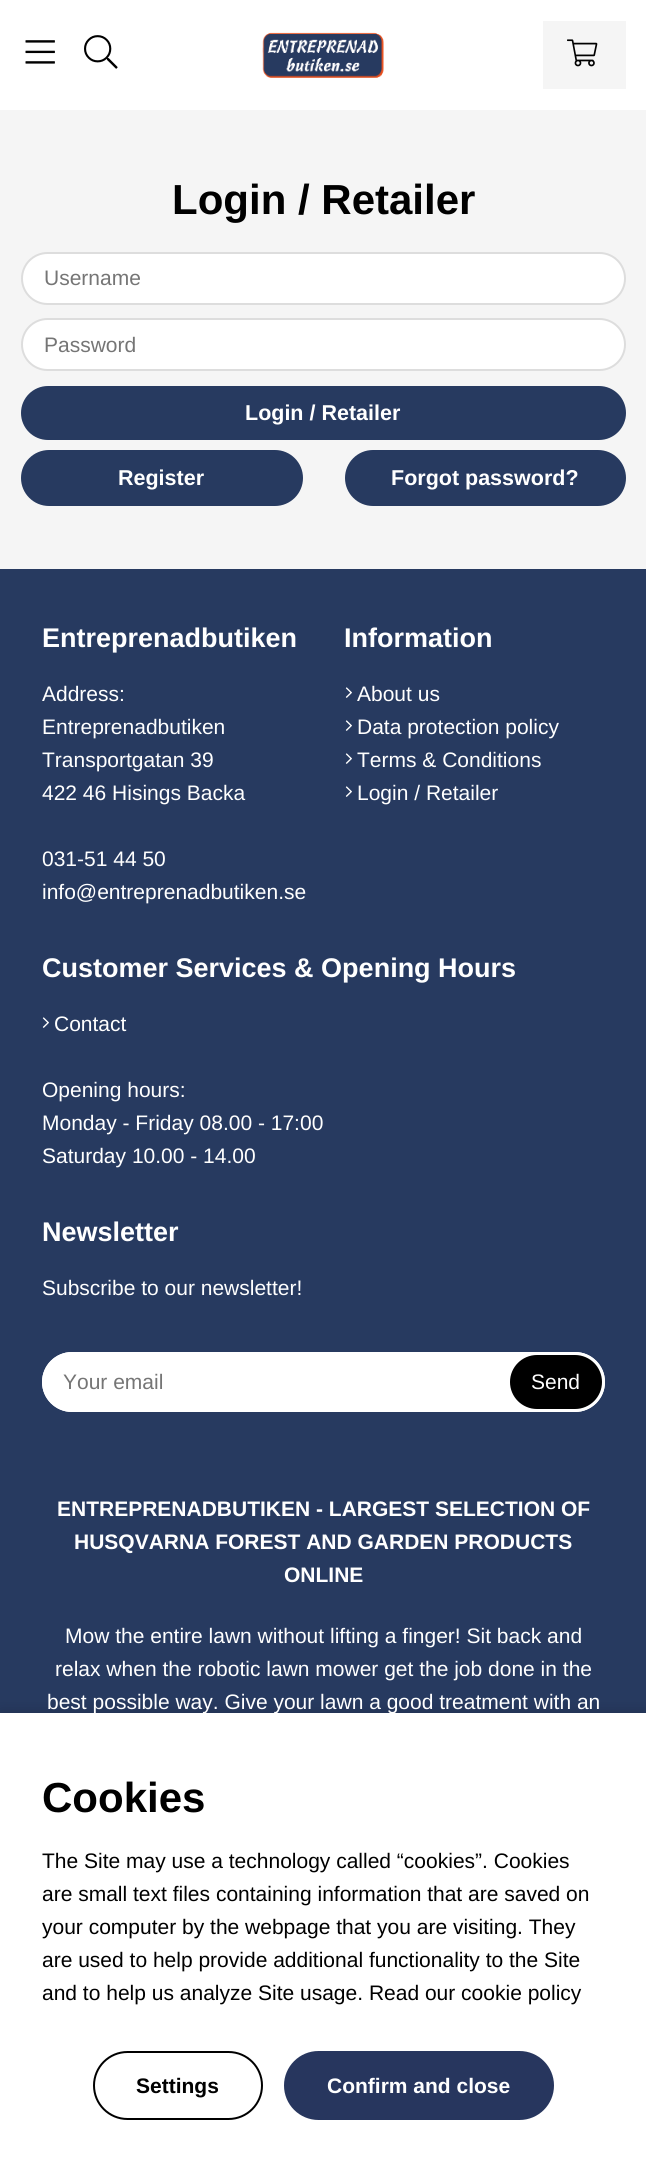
#include <cairo/cairo.h>
#include <math.h>
#include <stddef.h>

typedef struct { double x, y; const char *s; } line_t;
static cairo_t *cr;

static void rgb(unsigned color)
{
	cairo_set_source_rgb(cr, (color >> 16) / 255.0, (color >> 8 & 255) / 255.0, (color & 255) / 255.0);
}

static void rrect(double x, double y, double w, double h, double r)
{
	cairo_new_sub_path(cr);
	cairo_arc(cr, x + w - r, y + h - r, r, 0, M_PI / 2);
	cairo_arc(cr, x + r, y + h - r, r, M_PI / 2, M_PI);
	cairo_arc(cr, x + r, y + r, r, M_PI, 1.5 * M_PI);
	cairo_arc(cr, x + w - r, y + r, r, 1.5 * M_PI, 2 * M_PI);
	cairo_close_path(cr);
}

static void soft_shadow(double x, double y, double w, double h, double r, double blur, double alpha)
{
	cairo_push_group_with_content(cr, CAIRO_CONTENT_ALPHA);
	cairo_set_operator(cr, CAIRO_OPERATOR_SOURCE);
	for (int i = 15; i >= -15 && fmin(w, h) + blur * i / 3 > 0; i -= 2) {
		double e = blur * i / 6;
		cairo_set_source_rgba(cr, 0, 0, 0, alpha * erfc((i - 1) / 8.5) / 2);
		rrect(x - e, y - e, w + 2 * e, h + 2 * e, fmax(0, fmin(r + e + blur * .6, fmin(w, h) / 2 + e)));
		cairo_fill(cr);
	}
	cairo_pattern_t *soft = cairo_pop_group(cr);
	cairo_mask(cr, soft);
	cairo_pattern_destroy(soft);
}

static void image(const char *path, double x, double y, double w, double h)
{
	cairo_surface_t *image = cairo_image_surface_create_from_png(path);
	cairo_save(cr);
	cairo_set_source_surface(cr, image, x, y);
	cairo_rectangle(cr, x, y, w, h);
	cairo_fill(cr);
	cairo_restore(cr);
	cairo_surface_destroy(image);
}

int main(void) {
	cairo_surface_t *surface = cairo_image_surface_create(CAIRO_FORMAT_RGB24, 646, 2161);
	cr = cairo_create(surface);
	cairo_font_options_t *options = cairo_font_options_create();
	cairo_font_options_set_hint_metrics(options, CAIRO_HINT_METRICS_OFF);
	cairo_font_options_set_hint_style(options, CAIRO_HINT_STYLE_NONE);
	cairo_set_font_options(cr, options);
	cairo_set_miter_limit(cr, 4);
	rgb(0xf5f5f5);
	cairo_paint(cr);
	rgb(0xffffff);
	cairo_rectangle(cr, 0, 0, 646, 110);
	cairo_fill(cr);
	image("img/1.png", 25, 40, 30, 24);
	image("img/2.png", 84, 35, 34, 34);
	image("img/3.png", 262, 32, 122, 46);
	rgb(0xf5f5f5);
	cairo_rectangle(cr, 543, 21, 83, 68);
	cairo_fill(cr);
	image("img/4.png", 567, 39, 31, 28);
	rgb(0xffffff);
	rrect(22, 253, 603, 51, 25.5);
	cairo_fill_preserve(cr);
	rgb(0xdddddd);
	cairo_stroke(cr);
	rgb(0xffffff);
	rrect(22, 319, 603, 51, 25.5);
	cairo_fill_preserve(cr);
	rgb(0xdddddd);
	cairo_stroke(cr);
	rgb(0x273a60);
	rrect(21, 386, 605, 54, 27);
	cairo_fill(cr);
	rrect(21, 450, 282, 56, 28);
	cairo_fill(cr);
	rrect(345, 450, 281, 56, 28);
	cairo_fill(cr);
	cairo_rectangle(cr, 0, 569, 646, 1144);
	cairo_fill(cr);
	image("img/5.png", 345, 687, 7, 11);
	image("img/5.png", 345, 720, 7, 11);
	image("img/5.png", 345, 753, 7, 11);
	image("img/5.png", 345, 786, 7, 11);
	image("img/5.png", 42, 1017, 7, 11);
	rgb(0xffffff);
	rrect(42, 1352, 563, 60, 30);
	cairo_fill(cr);
	rrect(42, 1352, 314, 60, 30);
	cairo_fill(cr);
	rgb(0x000000);
	rrect(508.5, 1353.5, 95, 57, 28.5);
	cairo_fill_preserve(cr);
	rgb(0xffffff);
	cairo_set_line_width(cr, 3);
	cairo_stroke(cr);
	rgb(0x000000);
	soft_shadow(0, 1713, 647, 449, 0, 7.5, 0.2);
	rgb(0xffffff);
	cairo_rectangle(cr, 0, 1713, 646, 448);
	cairo_fill(cr);
	rrect(94, 2052, 168, 67, 33.5);
	rgb(0x000000);
	cairo_set_line_width(cr, 2);
	cairo_stroke(cr);
	rgb(0x27365e);
	rrect(284, 2051, 270, 69, 34.5);
	cairo_fill(cr);
	cairo_select_font_face(cr, "Liberation Sans", CAIRO_FONT_SLANT_NORMAL, CAIRO_FONT_WEIGHT_BOLD);
	cairo_set_font_size(cr, 42);
	rgb(0x000000);
	cairo_move_to(cr, 172, 214);
	cairo_show_text(cr, "Login / Retailer");
	cairo_select_font_face(cr, "Liberation Sans", CAIRO_FONT_SLANT_NORMAL, CAIRO_FONT_WEIGHT_NORMAL);
	cairo_set_font_size(cr, 21);
	rgb(0x757575);
	cairo_move_to(cr, 44, 285);
	cairo_show_text(cr, "Username");
	cairo_move_to(cr, 44, 352);
	cairo_show_text(cr, "Password");
	cairo_select_font_face(cr, "Liberation Sans", CAIRO_FONT_SLANT_NORMAL, CAIRO_FONT_WEIGHT_BOLD);
	cairo_set_font_size(cr, 21.5);
	rgb(0xffffff);
	{
		static const line_t items[] = {
			{245, 420, "Login / Retailer"},
			{118, 485, "Register"},
			{391, 485, "Forgot password?"},
		};
		for (size_t i = 0; i < sizeof items / sizeof *items; i++) {
			cairo_move_to(cr, items[i].x, items[i].y);
			cairo_show_text(cr, items[i].s);
		}
	}
	cairo_set_font_size(cr, 27);
	cairo_move_to(cr, 42, 647);
	cairo_show_text(cr, "Entreprenadbutiken");
	cairo_select_font_face(cr, "Liberation Sans", CAIRO_FONT_SLANT_NORMAL, CAIRO_FONT_WEIGHT_NORMAL);
	cairo_set_font_size(cr, 21);
	{
		static const line_t items[] = {
			{42, 701, "Address:"},
			{42, 734, "Entreprenadbutiken"},
			{42, 767, "Transportgatan 39"},
			{42, 800, "422 46 Hisings Backa"},
			{42, 866, "031-51 44 50"},
			{42, 899, "info@entreprenadbutiken.se"},
		};
		for (size_t i = 0; i < sizeof items / sizeof *items; i++) {
			cairo_move_to(cr, items[i].x, items[i].y);
			cairo_show_text(cr, items[i].s);
		}
	}
	cairo_select_font_face(cr, "Liberation Sans", CAIRO_FONT_SLANT_NORMAL, CAIRO_FONT_WEIGHT_BOLD);
	cairo_set_font_size(cr, 27);
	cairo_move_to(cr, 344, 647);
	cairo_show_text(cr, "Information");
	cairo_select_font_face(cr, "Liberation Sans", CAIRO_FONT_SLANT_NORMAL, CAIRO_FONT_WEIGHT_NORMAL);
	cairo_set_font_size(cr, 21);
	{
		static const line_t items[] = {
			{357, 701, "About us"},
			{357, 734, "Data protection policy"},
			{357, 767, "Terms & Conditions"},
			{357, 800, "Login / Retailer"},
		};
		for (size_t i = 0; i < sizeof items / sizeof *items; i++) {
			cairo_move_to(cr, items[i].x, items[i].y);
			cairo_show_text(cr, items[i].s);
		}
	}
	cairo_select_font_face(cr, "Liberation Sans", CAIRO_FONT_SLANT_NORMAL, CAIRO_FONT_WEIGHT_BOLD);
	cairo_set_font_size(cr, 27);
	cairo_move_to(cr, 42, 977);
	cairo_show_text(cr, "Customer Services & Opening Hours");
	cairo_select_font_face(cr, "Liberation Sans", CAIRO_FONT_SLANT_NORMAL, CAIRO_FONT_WEIGHT_NORMAL);
	cairo_set_font_size(cr, 21);
	{
		static const line_t items[] = {
			{54, 1031, "Contact"},
			{42, 1097, "Opening hours:"},
			{42, 1130, "Monday - Friday 08.00 - 17:00"},
			{42, 1163, "Saturday 10.00 - 14.00"},
		};
		for (size_t i = 0; i < sizeof items / sizeof *items; i++) {
			cairo_move_to(cr, items[i].x, items[i].y);
			cairo_show_text(cr, items[i].s);
		}
	}
	cairo_select_font_face(cr, "Liberation Sans", CAIRO_FONT_SLANT_NORMAL, CAIRO_FONT_WEIGHT_BOLD);
	cairo_set_font_size(cr, 27);
	cairo_move_to(cr, 42, 1241);
	cairo_show_text(cr, "Newsletter");
	cairo_select_font_face(cr, "Liberation Sans", CAIRO_FONT_SLANT_NORMAL, CAIRO_FONT_WEIGHT_NORMAL);
	cairo_set_font_size(cr, 21);
	cairo_move_to(cr, 42, 1295);
	cairo_show_text(cr, "Subscribe to our newsletter!");
	rgb(0x757575);
	cairo_move_to(cr, 63, 1389);
	cairo_show_text(cr, "Your email");
	rgb(0xffffff);
	cairo_move_to(cr, 531, 1389);
	cairo_show_text(cr, "Send");
	cairo_select_font_face(cr, "Liberation Sans", CAIRO_FONT_SLANT_NORMAL, CAIRO_FONT_WEIGHT_BOLD);
	{
		static const line_t items[] = {
			{57, 1516, "ENTREPRENADBUTIKEN - LARGEST SELECTION OF"},
			{74, 1549, "HUSQVARNA FOREST AND GARDEN PRODUCTS"},
			{284, 1582, "ONLINE"},
		};
		for (size_t i = 0; i < sizeof items / sizeof *items; i++) {
			cairo_move_to(cr, items[i].x, items[i].y);
			cairo_show_text(cr, items[i].s);
		}
	}
	cairo_select_font_face(cr, "Liberation Sans", CAIRO_FONT_SLANT_NORMAL, CAIRO_FONT_WEIGHT_NORMAL);
	{
		static const line_t items[] = {
			{65, 1643, "Mow the entire lawn without lifting a finger! Sit back and"},
			{55, 1676, "relax when the robotic lawn mower get the job done in the"},
			{47, 1709, "best possible way. Give your lawn a good treatment with an"},
		};
		for (size_t i = 0; i < sizeof items / sizeof *items; i++) {
			cairo_move_to(cr, items[i].x, items[i].y);
			cairo_show_text(cr, items[i].s);
		}
	}
	cairo_select_font_face(cr, "Liberation Sans", CAIRO_FONT_SLANT_NORMAL, CAIRO_FONT_WEIGHT_BOLD);
	cairo_set_font_size(cr, 42);
	rgb(0x000000);
	cairo_move_to(cr, 42, 1812);
	cairo_show_text(cr, "Cookies");
	cairo_select_font_face(cr, "Liberation Sans", CAIRO_FONT_SLANT_NORMAL, CAIRO_FONT_WEIGHT_NORMAL);
	cairo_set_font_size(cr, 21);
	{
		static const line_t items[] = {
			{42, 1868, "The Site may use a technology called “cookies”. Cookies"},
			{42, 1901, "are small text files containing information that are saved on"},
			{42, 1934, "your computer by the webpage that you are visiting. They"},
			{42, 1967, "are used to help provide additional functionality to the Site"},
			{42, 2000, "and to help us analyze Site usage. Read our cookie policy"},
		};
		for (size_t i = 0; i < sizeof items / sizeof *items; i++) {
			cairo_move_to(cr, items[i].x, items[i].y);
			cairo_show_text(cr, items[i].s);
		}
	}
	cairo_select_font_face(cr, "Liberation Sans", CAIRO_FONT_SLANT_NORMAL, CAIRO_FONT_WEIGHT_BOLD);
	cairo_move_to(cr, 136, 2093);
	cairo_show_text(cr, "Settings");
	rgb(0xffffff);
	cairo_move_to(cr, 327, 2093);
	cairo_show_text(cr, "Confirm and close");
	cairo_surface_write_to_png(surface, "page.png");
	cairo_font_options_destroy(options);
	cairo_destroy(cr);
	cairo_surface_destroy(surface);
	return 0;
}
